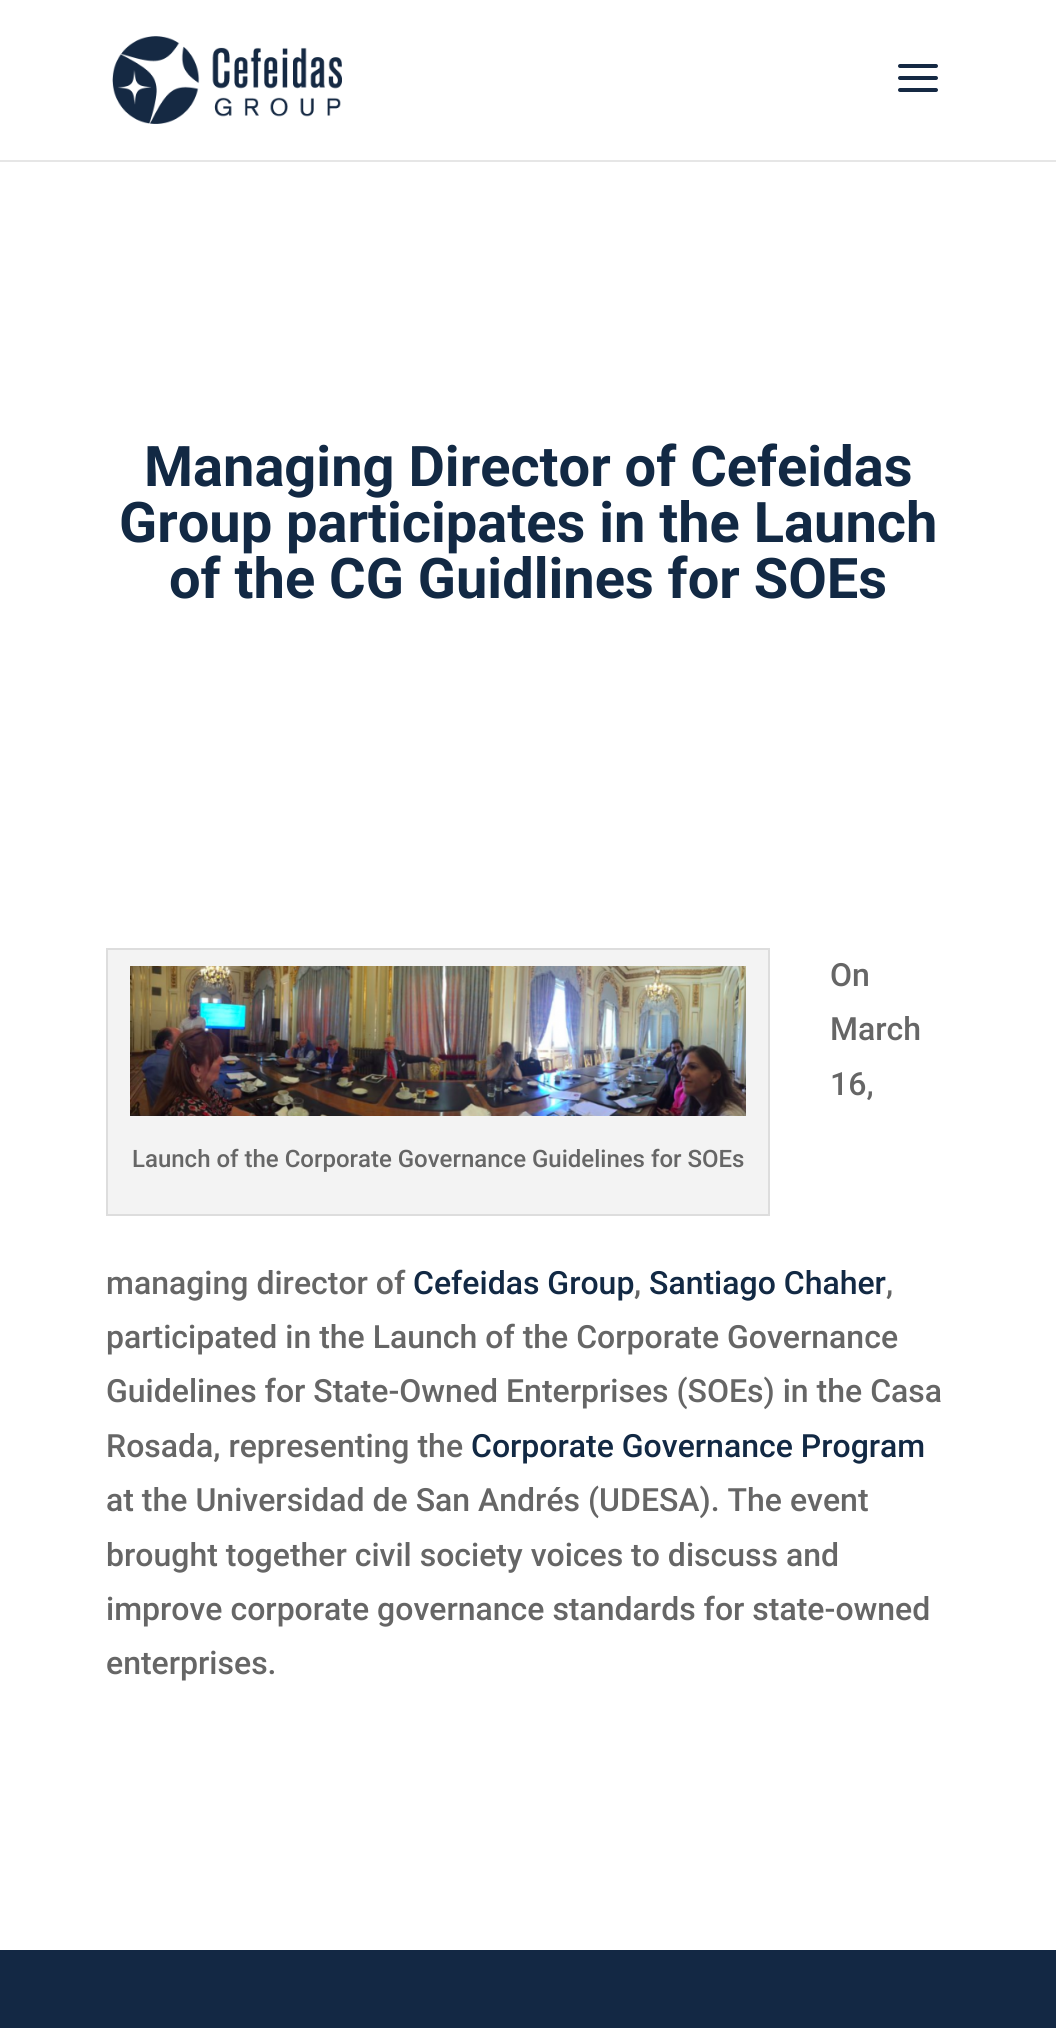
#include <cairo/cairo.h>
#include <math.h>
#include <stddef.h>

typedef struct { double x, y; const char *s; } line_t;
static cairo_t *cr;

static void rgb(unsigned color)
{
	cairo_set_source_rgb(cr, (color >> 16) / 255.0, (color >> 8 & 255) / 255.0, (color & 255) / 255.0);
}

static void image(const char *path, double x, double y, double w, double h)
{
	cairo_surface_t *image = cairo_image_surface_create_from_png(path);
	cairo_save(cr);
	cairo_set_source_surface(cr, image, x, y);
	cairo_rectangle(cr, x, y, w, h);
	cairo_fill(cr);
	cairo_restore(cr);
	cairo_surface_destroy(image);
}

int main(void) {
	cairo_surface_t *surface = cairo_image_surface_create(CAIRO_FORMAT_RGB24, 1056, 2028);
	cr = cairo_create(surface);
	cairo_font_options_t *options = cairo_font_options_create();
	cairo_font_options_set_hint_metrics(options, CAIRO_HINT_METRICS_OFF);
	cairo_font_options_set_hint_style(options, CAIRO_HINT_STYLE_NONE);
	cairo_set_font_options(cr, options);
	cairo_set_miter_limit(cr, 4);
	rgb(0xffffff);
	cairo_paint(cr);
	rgb(0xe6e6e6);
	cairo_rectangle(cr, 0, 160, 1056, 2);
	cairo_fill(cr);
	image("img/1.png", 112, 36, 230, 88);
	image("img/2.png", 898, 64, 40, 28);
	rgb(0xf3f3f3);
	cairo_rectangle(cr, 107, 949, 662, 266);
	cairo_fill_preserve(cr);
	rgb(0xdddddd);
	cairo_stroke(cr);
	image("img/3.png", 130, 966, 616, 150);
	rgb(0x132844);
	cairo_rectangle(cr, 0, 1950, 1056, 78);
	cairo_fill(cr);
	cairo_select_font_face(cr, "Roboto", CAIRO_FONT_SLANT_NORMAL, CAIRO_FONT_WEIGHT_BOLD);
	cairo_set_font_size(cr, 56);
	rgb(0x122944);
	{
		static const line_t items[] = {
			{144, 486, "Managing Director of Cefeidas"},
			{119, 542, "Group participates in the Launch"},
			{169, 598, "of the CG Guidlines for SOEs"},
		};
		for (size_t i = 0; i < sizeof items / sizeof *items; i++) {
			cairo_move_to(cr, items[i].x, items[i].y);
			cairo_show_text(cr, items[i].s);
		}
	}
	cairo_select_font_face(cr, "Roboto Medium", CAIRO_FONT_SLANT_NORMAL, CAIRO_FONT_WEIGHT_NORMAL);
	cairo_set_font_size(cr, 32);
	rgb(0x666666);
	{
		static const line_t items[] = {
			{830, 986, "On"},
			{830, 1040, "March"},
			{830, 1095, "16,"},
			{106, 1294, "managing director of"},
		};
		for (size_t i = 0; i < sizeof items / sizeof *items; i++) {
			cairo_move_to(cr, items[i].x, items[i].y);
			cairo_show_text(cr, items[i].s);
		}
	}
	rgb(0x122944);
	cairo_move_to(cr, 413, 1294);
	cairo_show_text(cr, "Cefeidas Group");
	rgb(0x666666);
	cairo_move_to(cr, 634, 1294);
	cairo_show_text(cr, ",");
	rgb(0x122944);
	cairo_move_to(cr, 649, 1294);
	cairo_show_text(cr, "Santiago Chaher");
	rgb(0x666666);
	{
		static const line_t items[] = {
			{886, 1294, ","},
			{106, 1348, "participated in the Launch of the Corporate Governance"},
			{106, 1402, "Guidelines for State-Owned Enterprises (SOEs) in the Casa"},
			{106, 1457, "Rosada, representing the"},
		};
		for (size_t i = 0; i < sizeof items / sizeof *items; i++) {
			cairo_move_to(cr, items[i].x, items[i].y);
			cairo_show_text(cr, items[i].s);
		}
	}
	rgb(0x122944);
	cairo_move_to(cr, 471, 1457);
	cairo_show_text(cr, "Corporate Governance Program");
	rgb(0x666666);
	{
		static const line_t items[] = {
			{106, 1511, "at the Universidad de San Andrés (UDESA). The event"},
			{106, 1566, "brought together civil society voices to discuss and"},
			{106, 1620, "improve corporate governance standards for state-owned"},
			{106, 1674, "enterprises."},
		};
		for (size_t i = 0; i < sizeof items / sizeof *items; i++) {
			cairo_move_to(cr, items[i].x, items[i].y);
			cairo_show_text(cr, items[i].s);
		}
	}
	cairo_set_font_size(cr, 24);
	cairo_move_to(cr, 132, 1167);
	cairo_show_text(cr, "Launch of the Corporate Governance Guidelines for SOEs");
	cairo_surface_write_to_png(surface, "page.png");
	cairo_font_options_destroy(options);
	cairo_destroy(cr);
	cairo_surface_destroy(surface);
	return 0;
}
